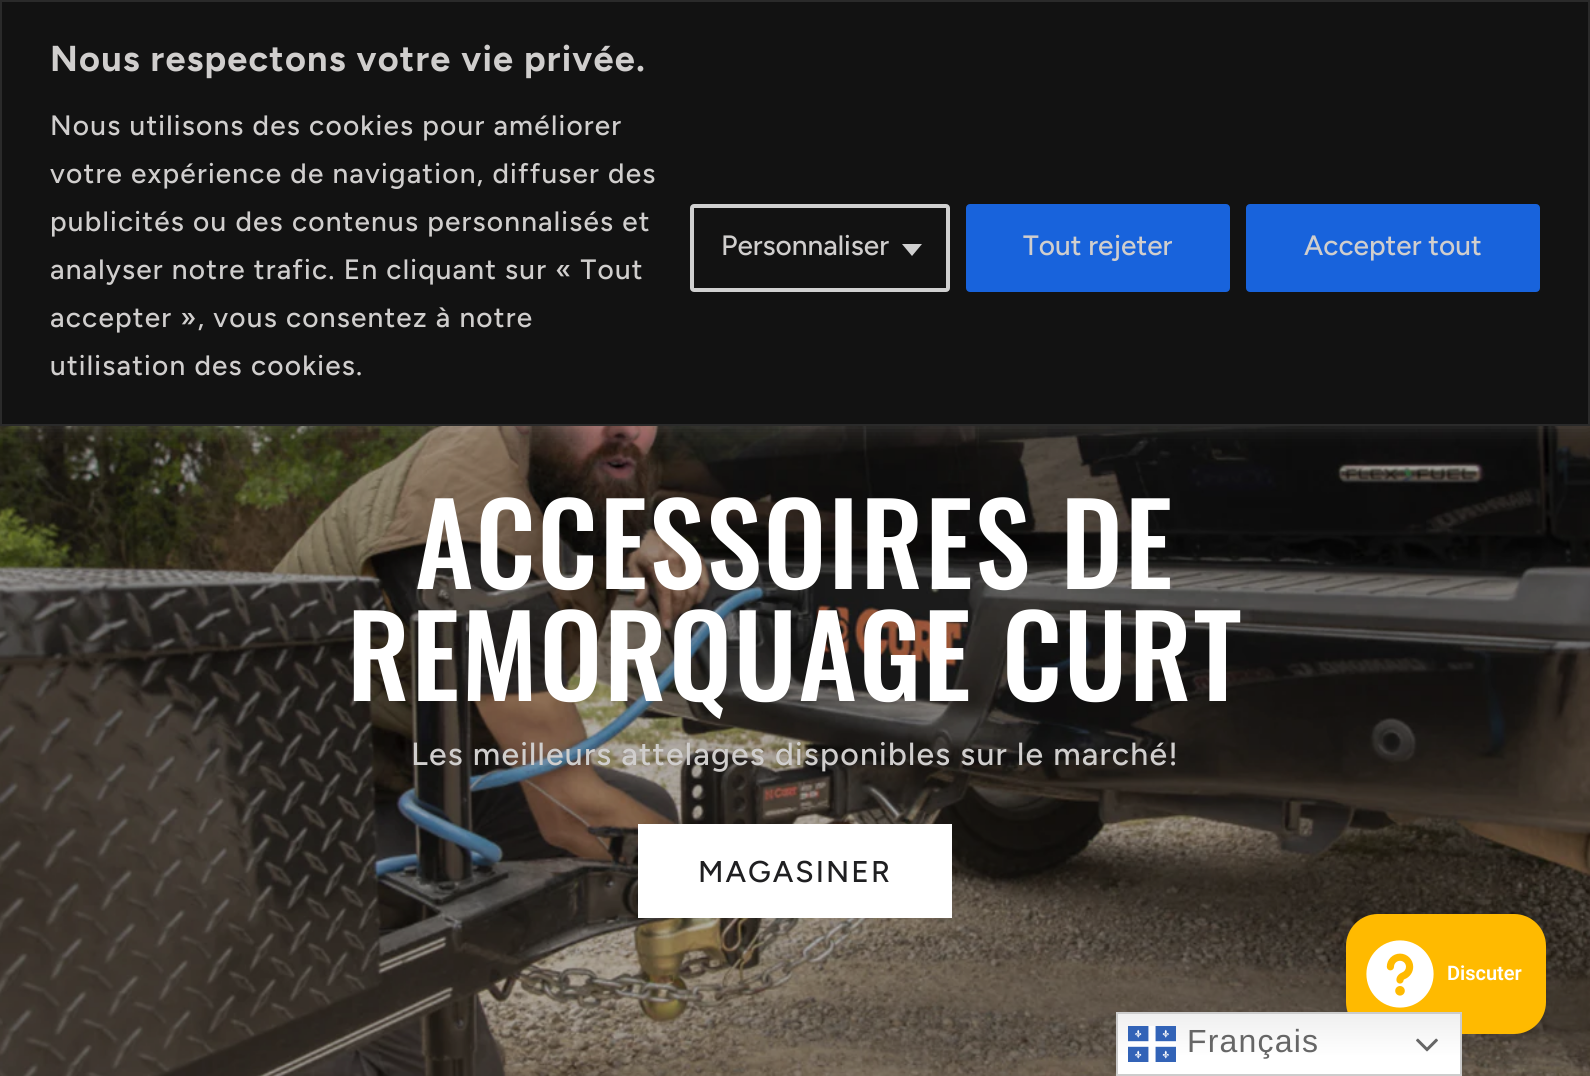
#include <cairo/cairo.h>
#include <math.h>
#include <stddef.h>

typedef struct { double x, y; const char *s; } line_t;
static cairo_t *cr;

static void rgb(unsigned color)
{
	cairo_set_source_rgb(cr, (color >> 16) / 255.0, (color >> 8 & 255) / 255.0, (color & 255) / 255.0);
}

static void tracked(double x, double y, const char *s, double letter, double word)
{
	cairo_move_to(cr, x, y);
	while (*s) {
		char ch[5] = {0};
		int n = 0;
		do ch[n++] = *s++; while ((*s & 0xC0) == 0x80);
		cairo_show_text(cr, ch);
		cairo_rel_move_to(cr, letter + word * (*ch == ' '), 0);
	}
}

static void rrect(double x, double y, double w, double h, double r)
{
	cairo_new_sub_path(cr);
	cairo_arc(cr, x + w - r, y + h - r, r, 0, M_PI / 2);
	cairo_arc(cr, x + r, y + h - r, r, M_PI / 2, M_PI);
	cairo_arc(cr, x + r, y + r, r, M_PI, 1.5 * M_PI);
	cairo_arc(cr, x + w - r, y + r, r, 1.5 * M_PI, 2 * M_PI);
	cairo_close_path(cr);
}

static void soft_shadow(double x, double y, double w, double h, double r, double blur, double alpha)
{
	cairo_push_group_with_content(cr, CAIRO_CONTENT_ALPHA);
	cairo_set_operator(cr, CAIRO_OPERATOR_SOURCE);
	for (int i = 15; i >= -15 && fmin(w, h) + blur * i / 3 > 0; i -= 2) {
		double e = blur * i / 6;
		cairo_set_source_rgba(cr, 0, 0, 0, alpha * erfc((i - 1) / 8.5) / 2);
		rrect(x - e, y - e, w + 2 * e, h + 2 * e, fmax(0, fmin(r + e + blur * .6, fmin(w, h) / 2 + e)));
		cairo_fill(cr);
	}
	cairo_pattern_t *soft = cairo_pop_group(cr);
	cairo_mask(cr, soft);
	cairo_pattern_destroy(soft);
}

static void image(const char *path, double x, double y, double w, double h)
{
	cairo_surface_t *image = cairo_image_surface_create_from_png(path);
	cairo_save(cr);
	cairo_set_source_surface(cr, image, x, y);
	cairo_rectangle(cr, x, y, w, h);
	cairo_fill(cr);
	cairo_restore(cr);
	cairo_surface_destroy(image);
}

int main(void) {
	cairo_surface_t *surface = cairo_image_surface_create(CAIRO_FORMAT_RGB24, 1590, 1076);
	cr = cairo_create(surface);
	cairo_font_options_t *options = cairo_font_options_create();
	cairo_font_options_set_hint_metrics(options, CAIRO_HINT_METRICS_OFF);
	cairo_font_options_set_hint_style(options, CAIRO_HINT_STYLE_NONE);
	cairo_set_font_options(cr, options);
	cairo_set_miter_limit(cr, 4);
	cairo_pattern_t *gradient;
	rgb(0xffffff);
	cairo_paint(cr);
	image("img/1.png", 0, 426, 1590, 650);
	rgb(0xacabab);
	soft_shadow(0, -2, 1590, 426, 0, 10, 0.3);
	rgb(0x121212);
	cairo_rectangle(cr, 1, 1, 1588, 424);
	cairo_fill_preserve(cr);
	rgb(0x2a2a2a);
	cairo_stroke(cr);
	rrect(692, 206, 256, 84, 2);
	rgb(0xd0d0d0);
	cairo_set_line_width(cr, 4);
	cairo_stroke(cr);
	cairo_new_path(cr);
	cairo_move_to(cr, 902, 244);
	cairo_line_to(cr, 922, 244);
	cairo_line_to(cr, 912, 256);
	cairo_close_path(cr);
	cairo_fill(cr);
	rgb(0x1863dc);
	rrect(968, 206, 260, 84, 2);
	cairo_fill_preserve(cr);
	cairo_stroke(cr);
	rrect(1248, 206, 290, 84, 2);
	cairo_fill_preserve(cr);
	cairo_stroke(cr);
	rgb(0xffffff);
	cairo_rectangle(cr, 638, 824, 314, 94);
	cairo_fill(cr);
	rgb(0x000000);
	soft_shadow(1346, 914, 200, 120, 32, 5, 0.15);
	rgb(0xffba00);
	rrect(1346, 914, 200, 120, 32);
	cairo_fill(cr);
	image("img/2.png", 1366, 940, 68, 68);
	gradient = cairo_pattern_create_linear(1289, 1012, 1289, 1076);
	cairo_pattern_add_color_stop_rgba(gradient, 0, 0.937, 0.937, 0.937, 1);
	cairo_pattern_add_color_stop_rgba(gradient, 0.7, 1, 1, 1, 1);
	cairo_set_source(cr, gradient);
	cairo_pattern_destroy(gradient);
	cairo_rectangle(cr, 1118, 1014, 342, 60);
	cairo_fill(cr);
	cairo_rectangle(cr, 1117, 1013, 344, 62);
	rgb(0xcccccc);
	cairo_set_line_width(cr, 2);
	cairo_stroke(cr);
	image("img/3.png", 1128, 1026, 48, 36);
	image("img/4.png", 1416, 1038, 22, 14);
	cairo_select_font_face(cr, "Figtree", CAIRO_FONT_SLANT_NORMAL, CAIRO_FONT_WEIGHT_BOLD);
	cairo_set_font_size(cr, 36);
	rgb(0xd0cecd);
	tracked(50, 71, "Nous respectons votre vie privée.", 1.2, 0);
	cairo_select_font_face(cr, "Figtree Medium", CAIRO_FONT_SLANT_NORMAL, CAIRO_FONT_WEIGHT_NORMAL);
	cairo_set_font_size(cr, 28);
	{
		static const line_t items[] = {
			{50, 135, "Nous utilisons des cookies pour améliorer"},
			{50, 183, "votre expérience de navigation, diffuser des"},
			{50, 231, "publicités ou des contenus personnalisés et"},
			{50, 279, "analyser notre trafic. En cliquant sur « Tout"},
			{50, 327, "accepter », vous consentez à notre"},
			{50, 375, "utilisation des cookies."},
		};
		for (size_t i = 0; i < sizeof items / sizeof *items; i++) {
			tracked(items[i].x, items[i].y, items[i].s, 1.2, 0);
		}
	}
	{
		static const line_t items[] = {
			{721, 255, "Personnaliser"},
			{1023, 255, "Tout rejeter"},
			{1304, 255, "Accepter tout"},
		};
		for (size_t i = 0; i < sizeof items / sizeof *items; i++) {
			cairo_move_to(cr, items[i].x, items[i].y);
			cairo_show_text(cr, items[i].s);
		}
	}
	cairo_select_font_face(cr, "Oswald Medium", CAIRO_FONT_SLANT_NORMAL, CAIRO_FONT_WEIGHT_NORMAL);
	cairo_set_font_size(cr, 112);
	rgb(0xffffff);
	tracked(415, 589, "ACCESSOIRES DE", 1.7, 0);
	tracked(347, 701, "REMORQUAGE CURT", 1.7, 0);
	cairo_select_font_face(cr, "Figtree Medium", CAIRO_FONT_SLANT_NORMAL, CAIRO_FONT_WEIGHT_NORMAL);
	cairo_set_font_size(cr, 32);
	rgb(0xd0cecd);
	tracked(411, 765, "Les meilleurs attelages disponibles sur le marché!", 1.2, 0);
	cairo_set_font_size(cr, 30);
	rgb(0x1f1f21);
	tracked(698, 882, "MAGASINER", 2, 0);
	cairo_select_font_face(cr, "Roboto SemiBold", CAIRO_FONT_SLANT_NORMAL, CAIRO_FONT_WEIGHT_NORMAL);
	cairo_set_font_size(cr, 20);
	rgb(0xffffff);
	cairo_move_to(cr, 1447, 980);
	cairo_show_text(cr, "Discuter");
	cairo_select_font_face(cr, "Liberation Sans", CAIRO_FONT_SLANT_NORMAL, CAIRO_FONT_WEIGHT_NORMAL);
	cairo_set_font_size(cr, 32);
	rgb(0x666666);
	tracked(1187, 1052, "Français", 1.2, 0);
	cairo_surface_write_to_png(surface, "page.png");
	cairo_font_options_destroy(options);
	cairo_destroy(cr);
	cairo_surface_destroy(surface);
	return 0;
}
